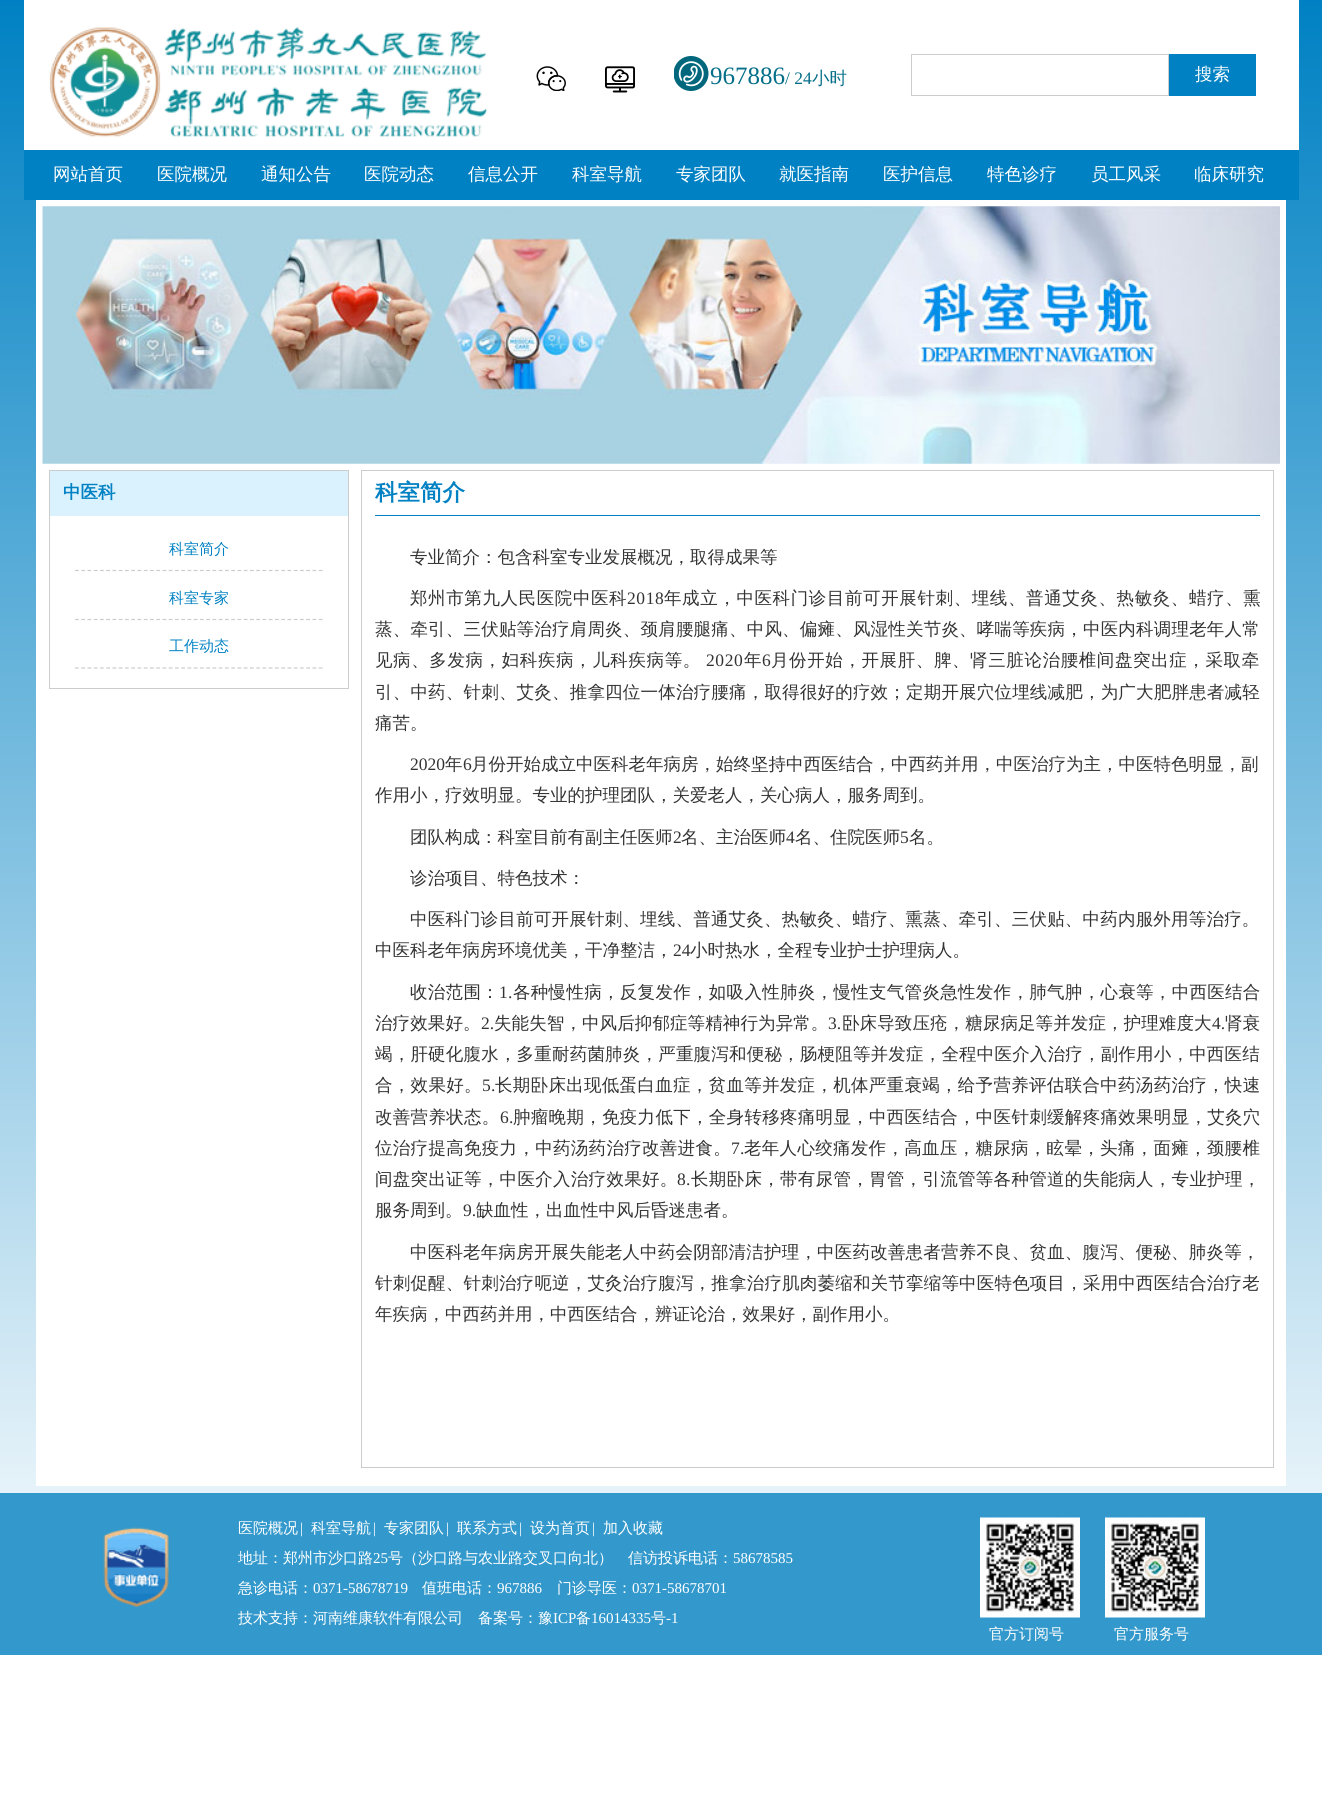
#include <cairo/cairo.h>
#include <math.h>
#include <stddef.h>

typedef struct { double x, y; const char *s; } line_t;
typedef struct { double x, y, w, h; unsigned color; } box_t;
static cairo_t *cr;

static void rgb(unsigned color)
{
	cairo_set_source_rgb(cr, (color >> 16) / 255.0, (color >> 8 & 255) / 255.0, (color & 255) / 255.0);
}

static void tracked(double x, double y, const char *s, double letter, double word)
{
	cairo_move_to(cr, x, y);
	while (*s) {
		char ch[5] = {0};
		int n = 0;
		do ch[n++] = *s++; while ((*s & 0xC0) == 0x80);
		cairo_show_text(cr, ch);
		cairo_rel_move_to(cr, letter + word * (*ch == ' '), 0);
	}
}

static void image(const char *path, double x, double y, double w, double h)
{
	cairo_surface_t *image = cairo_image_surface_create_from_png(path);
	cairo_save(cr);
	cairo_set_source_surface(cr, image, x, y);
	cairo_rectangle(cr, x, y, w, h);
	cairo_fill(cr);
	cairo_restore(cr);
	cairo_surface_destroy(image);
}

int main(void) {
	cairo_surface_t *surface = cairo_image_surface_create(CAIRO_FORMAT_RGB24, 1322, 1809);
	cr = cairo_create(surface);
	cairo_font_options_t *options = cairo_font_options_create();
	cairo_font_options_set_hint_metrics(options, CAIRO_HINT_METRICS_OFF);
	cairo_font_options_set_hint_style(options, CAIRO_HINT_STYLE_NONE);
	cairo_set_font_options(cr, options);
	cairo_set_miter_limit(cr, 4);
	cairo_pattern_t *gradient;
	rgb(0xffffff);
	cairo_paint(cr);
	gradient = cairo_pattern_create_linear(661, 0, 661, 1655);
	cairo_pattern_add_color_stop_rgba(gradient, 0, 0, 0.506, 0.765, 1);
	cairo_pattern_add_color_stop_rgba(gradient, 1, 1, 1, 1, 1);
	cairo_set_source(cr, gradient);
	cairo_pattern_destroy(gradient);
	cairo_rectangle(cr, 0, 0, 1322, 1493);
	cairo_fill(cr);
	rgb(0xffffff);
	cairo_rectangle(cr, 24, 0, 1275, 150);
	cairo_fill(cr);
	image("img/1.png", 49, 27, 438, 110);
	image("img/2.png", 536, 66, 30, 25);
	image("img/3.png", 605, 66, 30, 27);
	image("img/4.png", 674, 56, 35, 35);
	cairo_rectangle(cr, 911.5, 54.5, 257, 41);
	rgb(0xcccccc);
	cairo_set_line_width(cr, 1);
	cairo_stroke(cr);
	{
		static const box_t items[] = {
			{1169, 54, 87, 42, 0x0081c3},
			{24, 150, 1275, 50, 0x0081c3},
			{36, 200, 1250, 1286, 0xffffff},
		};
		for (size_t i = 0; i < sizeof items / sizeof *items; i++) {
			rgb(items[i].color);
			cairo_rectangle(cr, items[i].x, items[i].y, items[i].w, items[i].h);
			cairo_fill(cr);
		}
	}
	image("img/5.png", 42, 206, 1238, 258);
	cairo_rectangle(cr, 49.5, 470.5, 299, 218);
	rgb(0xcccccc);
	cairo_stroke(cr);
	rgb(0xdaf2fe);
	cairo_rectangle(cr, 50, 471, 298, 45);
	cairo_fill(cr);
	cairo_new_path(cr);
	cairo_move_to(cr, 75, 570.5);
	cairo_line_to(cr, 322.5, 570.5);
	rgb(0xcccccc);
	cairo_set_line_width(cr, 1.2);
	cairo_set_dash(cr, (double[]){3.75, 2.5}, 2, 0);
	cairo_stroke(cr);
	cairo_new_path(cr);
	cairo_move_to(cr, 75, 619.5);
	cairo_line_to(cr, 322.5, 619.5);
	cairo_stroke(cr);
	cairo_new_path(cr);
	cairo_move_to(cr, 75, 668);
	cairo_line_to(cr, 322.5, 668);
	cairo_stroke(cr);
	cairo_rectangle(cr, 361.5, 470.5, 912, 997);
	cairo_set_line_width(cr, 1);
	cairo_set_dash(cr, NULL, 0, 0);
	cairo_stroke(cr);
	rgb(0x0081c3);
	cairo_rectangle(cr, 375, 515, 885, 1);
	cairo_fill(cr);
	rgb(0x3399cc);
	cairo_rectangle(cr, 0, 1493, 1322, 162);
	cairo_fill(cr);
	image("img/6.png", 103, 1527, 66, 81);
	image("img/7.png", 980, 1517, 100, 101);
	image("img/8.png", 1105, 1517, 100, 101);
	cairo_select_font_face(cr, "Liberation Serif", CAIRO_FONT_SLANT_NORMAL, CAIRO_FONT_WEIGHT_NORMAL);
	cairo_set_font_size(cr, 25);
	rgb(0x056f89);
	cairo_move_to(cr, 710, 84);
	cairo_show_text(cr, "967886");
	cairo_set_font_size(cr, 17.5);
	cairo_move_to(cr, 785, 84);
	cairo_show_text(cr, "/ 24");
	cairo_select_font_face(cr, "WenQuanYi Zen Hei Medium", CAIRO_FONT_SLANT_NORMAL, CAIRO_FONT_WEIGHT_NORMAL);
	cairo_move_to(cr, 812, 84);
	cairo_show_text(cr, "小时");
	rgb(0xffffff);
	{
		static const line_t items[] = {
			{1195, 80, "搜索"},
			{53, 180, "网站首页"},
			{157, 180, "医院概况"},
			{261, 180, "通知公告"},
			{364, 180, "医院动态"},
			{468, 180, "信息公开"},
			{572, 180, "科室导航"},
			{676, 180, "专家团队"},
			{779, 180, "就医指南"},
			{883, 180, "医护信息"},
			{987, 180, "特色诊疗"},
			{1091, 180, "员工风采"},
			{1194, 180, "临床研究"},
		};
		for (size_t i = 0; i < sizeof items / sizeof *items; i++) {
			cairo_move_to(cr, items[i].x, items[i].y);
			cairo_show_text(cr, items[i].s);
		}
	}
	cairo_select_font_face(cr, "WenQuanYi Zen Hei", CAIRO_FONT_SLANT_NORMAL, CAIRO_FONT_WEIGHT_BOLD);
	rgb(0x0081c3);
	cairo_move_to(cr, 63, 498);
	cairo_show_text(cr, "中医科");
	cairo_select_font_face(cr, "WenQuanYi Zen Hei Medium", CAIRO_FONT_SLANT_NORMAL, CAIRO_FONT_WEIGHT_NORMAL);
	cairo_set_font_size(cr, 15);
	{
		static const line_t items[] = {
			{169, 554, "科室简介"},
			{169, 603, "科室专家"},
			{169, 651, "工作动态"},
		};
		for (size_t i = 0; i < sizeof items / sizeof *items; i++) {
			cairo_move_to(cr, items[i].x, items[i].y);
			cairo_show_text(cr, items[i].s);
		}
	}
	cairo_select_font_face(cr, "WenQuanYi Zen Hei", CAIRO_FONT_SLANT_NORMAL, CAIRO_FONT_WEIGHT_BOLD);
	cairo_set_font_size(cr, 22.5);
	cairo_move_to(cr, 375, 500);
	cairo_show_text(cr, "科室简介");
	cairo_select_font_face(cr, "WenQuanYi Zen Hei Medium", CAIRO_FONT_SLANT_NORMAL, CAIRO_FONT_WEIGHT_NORMAL);
	cairo_set_font_size(cr, 17.5);
	rgb(0x333333);
	cairo_move_to(cr, 410, 563);
	cairo_show_text(cr, "专业简介：包含科室专业发展概况，取得成果等");
	tracked(410, 604, "郑州市第九人民医院中医科", 0.6, 0);
	cairo_select_font_face(cr, "Liberation Serif", CAIRO_FONT_SLANT_NORMAL, CAIRO_FONT_WEIGHT_NORMAL);
	tracked(627, 604, "2018", 0.6, 0);
	cairo_select_font_face(cr, "WenQuanYi Zen Hei Medium", CAIRO_FONT_SLANT_NORMAL, CAIRO_FONT_WEIGHT_NORMAL);
	tracked(664, 604, "年成立，中医科门诊目前可开展针刺、埋线、普通艾灸、热敏灸、蜡疗、熏", 0.6, 0);
	tracked(375, 635, "蒸、牵引、三伏贴等治疗肩周炎、颈肩腰腿痛、中风、偏瘫、风湿性关节炎、哮喘等疾病，中医内科调理老年人常", 0.2, 0);
	tracked(375, 666, "见病、多发病，妇科疾病，儿科疾病等。", 0.6, 0);
	cairo_select_font_face(cr, "Liberation Serif", CAIRO_FONT_SLANT_NORMAL, CAIRO_FONT_WEIGHT_NORMAL);
	tracked(706, 666, "2020", 0.6, 0);
	cairo_select_font_face(cr, "WenQuanYi Zen Hei Medium", CAIRO_FONT_SLANT_NORMAL, CAIRO_FONT_WEIGHT_NORMAL);
	tracked(744, 666, "年", 0.6, 0);
	cairo_select_font_face(cr, "Liberation Serif", CAIRO_FONT_SLANT_NORMAL, CAIRO_FONT_WEIGHT_NORMAL);
	tracked(762, 666, "6", 0.6, 0);
	cairo_select_font_face(cr, "WenQuanYi Zen Hei Medium", CAIRO_FONT_SLANT_NORMAL, CAIRO_FONT_WEIGHT_NORMAL);
	tracked(771, 666, "月份开始，开展肝、脾、肾三脏论治腰椎间盘突出症，采取牵", 0.6, 0);
	tracked(375, 698, "引、中药、针刺、艾灸、推拿四位一体治疗腰痛，取得很好的疗效；定期开展穴位埋线减肥，为广大肥胖患者减轻", 0.2, 0);
	cairo_move_to(cr, 375, 729);
	cairo_show_text(cr, "痛苦。");
	cairo_select_font_face(cr, "Liberation Serif", CAIRO_FONT_SLANT_NORMAL, CAIRO_FONT_WEIGHT_NORMAL);
	cairo_move_to(cr, 410, 770);
	cairo_show_text(cr, "2020");
	cairo_select_font_face(cr, "WenQuanYi Zen Hei Medium", CAIRO_FONT_SLANT_NORMAL, CAIRO_FONT_WEIGHT_NORMAL);
	cairo_move_to(cr, 445, 770);
	cairo_show_text(cr, "年");
	cairo_select_font_face(cr, "Liberation Serif", CAIRO_FONT_SLANT_NORMAL, CAIRO_FONT_WEIGHT_NORMAL);
	cairo_move_to(cr, 463, 770);
	cairo_show_text(cr, "6");
	cairo_select_font_face(cr, "WenQuanYi Zen Hei Medium", CAIRO_FONT_SLANT_NORMAL, CAIRO_FONT_WEIGHT_NORMAL);
	{
		static const line_t items[] = {
			{471, 770, "月份开始成立中医科老年病房，始终坚持中西医结合，中西药并用，中医治疗为主，中医特色明显，副"},
			{375, 801, "作用小，疗效明显。专业的护理团队，关爱老人，关心病人，服务周到。"},
			{410, 843, "团队构成：科室目前有副主任医师"},
		};
		for (size_t i = 0; i < sizeof items / sizeof *items; i++) {
			cairo_move_to(cr, items[i].x, items[i].y);
			cairo_show_text(cr, items[i].s);
		}
	}
	cairo_select_font_face(cr, "Liberation Serif", CAIRO_FONT_SLANT_NORMAL, CAIRO_FONT_WEIGHT_NORMAL);
	cairo_move_to(cr, 673, 843);
	cairo_show_text(cr, "2");
	cairo_select_font_face(cr, "WenQuanYi Zen Hei Medium", CAIRO_FONT_SLANT_NORMAL, CAIRO_FONT_WEIGHT_NORMAL);
	cairo_move_to(cr, 681, 843);
	cairo_show_text(cr, "名、主治医师");
	cairo_select_font_face(cr, "Liberation Serif", CAIRO_FONT_SLANT_NORMAL, CAIRO_FONT_WEIGHT_NORMAL);
	cairo_move_to(cr, 786, 843);
	cairo_show_text(cr, "4");
	cairo_select_font_face(cr, "WenQuanYi Zen Hei Medium", CAIRO_FONT_SLANT_NORMAL, CAIRO_FONT_WEIGHT_NORMAL);
	cairo_move_to(cr, 795, 843);
	cairo_show_text(cr, "名、住院医师");
	cairo_select_font_face(cr, "Liberation Serif", CAIRO_FONT_SLANT_NORMAL, CAIRO_FONT_WEIGHT_NORMAL);
	cairo_move_to(cr, 900, 843);
	cairo_show_text(cr, "5");
	cairo_select_font_face(cr, "WenQuanYi Zen Hei Medium", CAIRO_FONT_SLANT_NORMAL, CAIRO_FONT_WEIGHT_NORMAL);
	cairo_move_to(cr, 909, 843);
	cairo_show_text(cr, "名。");
	cairo_move_to(cr, 410, 884);
	cairo_show_text(cr, "诊治项目、特色技术：");
	tracked(410, 925, "中医科门诊目前可开展针刺、埋线、普通艾灸、热敏灸、蜡疗、熏蒸、牵引、三伏贴、中药内服外用等治疗。", 0.2, 0);
	cairo_move_to(cr, 375, 956);
	cairo_show_text(cr, "中医科老年病房环境优美，干净整洁，");
	cairo_select_font_face(cr, "Liberation Serif", CAIRO_FONT_SLANT_NORMAL, CAIRO_FONT_WEIGHT_NORMAL);
	cairo_move_to(cr, 673, 956);
	cairo_show_text(cr, "24");
	cairo_select_font_face(cr, "WenQuanYi Zen Hei Medium", CAIRO_FONT_SLANT_NORMAL, CAIRO_FONT_WEIGHT_NORMAL);
	cairo_move_to(cr, 690, 956);
	cairo_show_text(cr, "小时热水，全程专业护士护理病人。");
	tracked(410, 998, "收治范围：", 0.3, 0);
	cairo_select_font_face(cr, "Liberation Serif", CAIRO_FONT_SLANT_NORMAL, CAIRO_FONT_WEIGHT_NORMAL);
	tracked(499, 998, "1.", 0.3, 0);
	cairo_select_font_face(cr, "WenQuanYi Zen Hei Medium", CAIRO_FONT_SLANT_NORMAL, CAIRO_FONT_WEIGHT_NORMAL);
	tracked(513, 998, "各种慢性病，反复发作，如吸入性肺炎，慢性支气管炎急性发作，肺气肿，心衰等，中西医结合", 0.3, 0);
	tracked(375, 1029, "治疗效果好。", 0.1, 0);
	cairo_select_font_face(cr, "Liberation Serif", CAIRO_FONT_SLANT_NORMAL, CAIRO_FONT_WEIGHT_NORMAL);
	tracked(481, 1029, "2.", 0.1, 0);
	cairo_select_font_face(cr, "WenQuanYi Zen Hei Medium", CAIRO_FONT_SLANT_NORMAL, CAIRO_FONT_WEIGHT_NORMAL);
	tracked(494, 1029, "失能失智，中风后抑郁症等精神行为异常。", 0.1, 0);
	cairo_select_font_face(cr, "Liberation Serif", CAIRO_FONT_SLANT_NORMAL, CAIRO_FONT_WEIGHT_NORMAL);
	tracked(828, 1029, "3.", 0.1, 0);
	cairo_select_font_face(cr, "WenQuanYi Zen Hei Medium", CAIRO_FONT_SLANT_NORMAL, CAIRO_FONT_WEIGHT_NORMAL);
	tracked(842, 1029, "卧床导致压疮，糖尿病足等并发症，护理难度大", 0.1, 0);
	cairo_select_font_face(cr, "Liberation Serif", CAIRO_FONT_SLANT_NORMAL, CAIRO_FONT_WEIGHT_NORMAL);
	tracked(1212, 1029, "4.", 0.1, 0);
	cairo_select_font_face(cr, "WenQuanYi Zen Hei Medium", CAIRO_FONT_SLANT_NORMAL, CAIRO_FONT_WEIGHT_NORMAL);
	tracked(1225, 1029, "肾衰", 0.1, 0);
	tracked(375, 1060, "竭，肝硬化腹水，多重耐药菌肺炎，严重腹泻和便秘，肠梗阻等并发症，全程中医介入治疗，副作用小，中西医结", 0.2, 0);
	tracked(375, 1091, "合，效果好。", 0.3, 0);
	cairo_select_font_face(cr, "Liberation Serif", CAIRO_FONT_SLANT_NORMAL, CAIRO_FONT_WEIGHT_NORMAL);
	tracked(482, 1091, "5.", 0.3, 0);
	cairo_select_font_face(cr, "WenQuanYi Zen Hei Medium", CAIRO_FONT_SLANT_NORMAL, CAIRO_FONT_WEIGHT_NORMAL);
	tracked(495, 1091, "长期卧床出现低蛋白血症，贫血等并发症，机体严重衰竭，给予营养评估联合中药汤药治疗，快速", 0.3, 0);
	tracked(375, 1123, "改善营养状态。", 0.3, 0);
	cairo_select_font_face(cr, "Liberation Serif", CAIRO_FONT_SLANT_NORMAL, CAIRO_FONT_WEIGHT_NORMAL);
	tracked(500, 1123, "6.", 0.3, 0);
	cairo_select_font_face(cr, "WenQuanYi Zen Hei Medium", CAIRO_FONT_SLANT_NORMAL, CAIRO_FONT_WEIGHT_NORMAL);
	tracked(513, 1123, "肿瘤晚期，免疫力低下，全身转移疼痛明显，中西医结合，中医针刺缓解疼痛效果明显，艾灸穴", 0.3, 0);
	tracked(375, 1154, "位治疗提高免疫力，中药汤药治疗改善进食。", 0.3, 0);
	cairo_select_font_face(cr, "Liberation Serif", CAIRO_FONT_SLANT_NORMAL, CAIRO_FONT_WEIGHT_NORMAL);
	tracked(731, 1154, "7.", 0.3, 0);
	cairo_select_font_face(cr, "WenQuanYi Zen Hei Medium", CAIRO_FONT_SLANT_NORMAL, CAIRO_FONT_WEIGHT_NORMAL);
	tracked(744, 1154, "老年人心绞痛发作，高血压，糖尿病，眩晕，头痛，面瘫，颈腰椎", 0.3, 0);
	tracked(375, 1185, "间盘突出证等，中医介入治疗效果好。", 0.3, 0);
	cairo_select_font_face(cr, "Liberation Serif", CAIRO_FONT_SLANT_NORMAL, CAIRO_FONT_WEIGHT_NORMAL);
	tracked(677, 1185, "8.", 0.3, 0);
	cairo_select_font_face(cr, "WenQuanYi Zen Hei Medium", CAIRO_FONT_SLANT_NORMAL, CAIRO_FONT_WEIGHT_NORMAL);
	tracked(691, 1185, "长期卧床，带有尿管，胃管，引流管等各种管道的失能病人，专业护理，", 0.3, 0);
	cairo_move_to(cr, 375, 1216);
	cairo_show_text(cr, "服务周到。");
	cairo_select_font_face(cr, "Liberation Serif", CAIRO_FONT_SLANT_NORMAL, CAIRO_FONT_WEIGHT_NORMAL);
	cairo_move_to(cr, 463, 1216);
	cairo_show_text(cr, "9.");
	cairo_select_font_face(cr, "WenQuanYi Zen Hei Medium", CAIRO_FONT_SLANT_NORMAL, CAIRO_FONT_WEIGHT_NORMAL);
	cairo_move_to(cr, 476, 1216);
	cairo_show_text(cr, "缺血性，出血性中风后昏迷患者。");
	tracked(410, 1258, "中医科老年病房开展失能老人中药会阴部清洁护理，中医药改善患者营养不良、贫血、腹泻、便秘、肺炎等，", 0.2, 0);
	tracked(375, 1289, "针刺促醒、针刺治疗呃逆，艾灸治疗腹泻，推拿治疗肌肉萎缩和关节挛缩等中医特色项目，采用中西医结合治疗老", 0.2, 0);
	cairo_move_to(cr, 375, 1320);
	cairo_show_text(cr, "年疾病，中西药并用，中西医结合，辨证论治，效果好，副作用小。");
	cairo_set_font_size(cr, 15);
	rgb(0xffffff);
	cairo_move_to(cr, 238, 1533);
	cairo_show_text(cr, "医院概况");
	cairo_select_font_face(cr, "Liberation Serif", CAIRO_FONT_SLANT_NORMAL, CAIRO_FONT_WEIGHT_NORMAL);
	cairo_move_to(cr, 300, 1533);
	cairo_show_text(cr, "|");
	cairo_select_font_face(cr, "WenQuanYi Zen Hei Medium", CAIRO_FONT_SLANT_NORMAL, CAIRO_FONT_WEIGHT_NORMAL);
	cairo_move_to(cr, 311, 1533);
	cairo_show_text(cr, "科室导航");
	cairo_select_font_face(cr, "Liberation Serif", CAIRO_FONT_SLANT_NORMAL, CAIRO_FONT_WEIGHT_NORMAL);
	cairo_move_to(cr, 373, 1533);
	cairo_show_text(cr, "|");
	cairo_select_font_face(cr, "WenQuanYi Zen Hei Medium", CAIRO_FONT_SLANT_NORMAL, CAIRO_FONT_WEIGHT_NORMAL);
	cairo_move_to(cr, 384, 1533);
	cairo_show_text(cr, "专家团队");
	cairo_select_font_face(cr, "Liberation Serif", CAIRO_FONT_SLANT_NORMAL, CAIRO_FONT_WEIGHT_NORMAL);
	cairo_move_to(cr, 446, 1533);
	cairo_show_text(cr, "|");
	cairo_select_font_face(cr, "WenQuanYi Zen Hei Medium", CAIRO_FONT_SLANT_NORMAL, CAIRO_FONT_WEIGHT_NORMAL);
	cairo_move_to(cr, 457, 1533);
	cairo_show_text(cr, "联系方式");
	cairo_select_font_face(cr, "Liberation Serif", CAIRO_FONT_SLANT_NORMAL, CAIRO_FONT_WEIGHT_NORMAL);
	cairo_move_to(cr, 519, 1533);
	cairo_show_text(cr, "|");
	cairo_select_font_face(cr, "WenQuanYi Zen Hei Medium", CAIRO_FONT_SLANT_NORMAL, CAIRO_FONT_WEIGHT_NORMAL);
	cairo_move_to(cr, 530, 1533);
	cairo_show_text(cr, "设为首页");
	cairo_select_font_face(cr, "Liberation Serif", CAIRO_FONT_SLANT_NORMAL, CAIRO_FONT_WEIGHT_NORMAL);
	cairo_move_to(cr, 592, 1533);
	cairo_show_text(cr, "|");
	cairo_select_font_face(cr, "WenQuanYi Zen Hei Medium", CAIRO_FONT_SLANT_NORMAL, CAIRO_FONT_WEIGHT_NORMAL);
	cairo_move_to(cr, 603, 1533);
	cairo_show_text(cr, "加入收藏");
	cairo_move_to(cr, 238, 1563);
	cairo_show_text(cr, "地址：郑州市沙口路");
	cairo_select_font_face(cr, "Liberation Serif", CAIRO_FONT_SLANT_NORMAL, CAIRO_FONT_WEIGHT_NORMAL);
	cairo_move_to(cr, 373, 1563);
	cairo_show_text(cr, "25");
	cairo_select_font_face(cr, "WenQuanYi Zen Hei Medium", CAIRO_FONT_SLANT_NORMAL, CAIRO_FONT_WEIGHT_NORMAL);
	cairo_move_to(cr, 388, 1563);
	cairo_show_text(cr, "号（沙口路与农业路交叉口向北）　信访投诉电话：");
	cairo_select_font_face(cr, "Liberation Serif", CAIRO_FONT_SLANT_NORMAL, CAIRO_FONT_WEIGHT_NORMAL);
	cairo_move_to(cr, 733, 1563);
	cairo_show_text(cr, "58678585");
	cairo_select_font_face(cr, "WenQuanYi Zen Hei Medium", CAIRO_FONT_SLANT_NORMAL, CAIRO_FONT_WEIGHT_NORMAL);
	cairo_move_to(cr, 238, 1593);
	cairo_show_text(cr, "急诊电话：");
	cairo_select_font_face(cr, "Liberation Serif", CAIRO_FONT_SLANT_NORMAL, CAIRO_FONT_WEIGHT_NORMAL);
	cairo_move_to(cr, 313, 1593);
	cairo_show_text(cr, "0371-58678719");
	cairo_select_font_face(cr, "WenQuanYi Zen Hei Medium", CAIRO_FONT_SLANT_NORMAL, CAIRO_FONT_WEIGHT_NORMAL);
	cairo_move_to(cr, 422, 1593);
	cairo_show_text(cr, "值班电话：");
	cairo_select_font_face(cr, "Liberation Serif", CAIRO_FONT_SLANT_NORMAL, CAIRO_FONT_WEIGHT_NORMAL);
	cairo_move_to(cr, 497, 1593);
	cairo_show_text(cr, "967886");
	cairo_select_font_face(cr, "WenQuanYi Zen Hei Medium", CAIRO_FONT_SLANT_NORMAL, CAIRO_FONT_WEIGHT_NORMAL);
	cairo_move_to(cr, 557, 1593);
	cairo_show_text(cr, "门诊导医：");
	cairo_select_font_face(cr, "Liberation Serif", CAIRO_FONT_SLANT_NORMAL, CAIRO_FONT_WEIGHT_NORMAL);
	cairo_move_to(cr, 632, 1593);
	cairo_show_text(cr, "0371-58678701");
	cairo_select_font_face(cr, "WenQuanYi Zen Hei Medium", CAIRO_FONT_SLANT_NORMAL, CAIRO_FONT_WEIGHT_NORMAL);
	cairo_move_to(cr, 238, 1623);
	cairo_show_text(cr, "技术支持：河南维康软件有限公司");
	cairo_move_to(cr, 478, 1623);
	cairo_show_text(cr, "备案号：豫");
	cairo_select_font_face(cr, "Liberation Serif", CAIRO_FONT_SLANT_NORMAL, CAIRO_FONT_WEIGHT_NORMAL);
	cairo_move_to(cr, 553, 1623);
	cairo_show_text(cr, "ICP");
	cairo_select_font_face(cr, "WenQuanYi Zen Hei Medium", CAIRO_FONT_SLANT_NORMAL, CAIRO_FONT_WEIGHT_NORMAL);
	cairo_move_to(cr, 576, 1623);
	cairo_show_text(cr, "备");
	cairo_select_font_face(cr, "Liberation Serif", CAIRO_FONT_SLANT_NORMAL, CAIRO_FONT_WEIGHT_NORMAL);
	cairo_move_to(cr, 591, 1623);
	cairo_show_text(cr, "16014335");
	cairo_select_font_face(cr, "WenQuanYi Zen Hei Medium", CAIRO_FONT_SLANT_NORMAL, CAIRO_FONT_WEIGHT_NORMAL);
	cairo_move_to(cr, 651, 1623);
	cairo_show_text(cr, "号");
	cairo_select_font_face(cr, "Liberation Serif", CAIRO_FONT_SLANT_NORMAL, CAIRO_FONT_WEIGHT_NORMAL);
	cairo_move_to(cr, 666, 1623);
	cairo_show_text(cr, "-1");
	cairo_select_font_face(cr, "WenQuanYi Zen Hei Medium", CAIRO_FONT_SLANT_NORMAL, CAIRO_FONT_WEIGHT_NORMAL);
	cairo_move_to(cr, 989, 1639);
	cairo_show_text(cr, "官方订阅号");
	cairo_move_to(cr, 1114, 1639);
	cairo_show_text(cr, "官方服务号");
	cairo_surface_write_to_png(surface, "page.png");
	cairo_font_options_destroy(options);
	cairo_destroy(cr);
	cairo_surface_destroy(surface);
	return 0;
}
